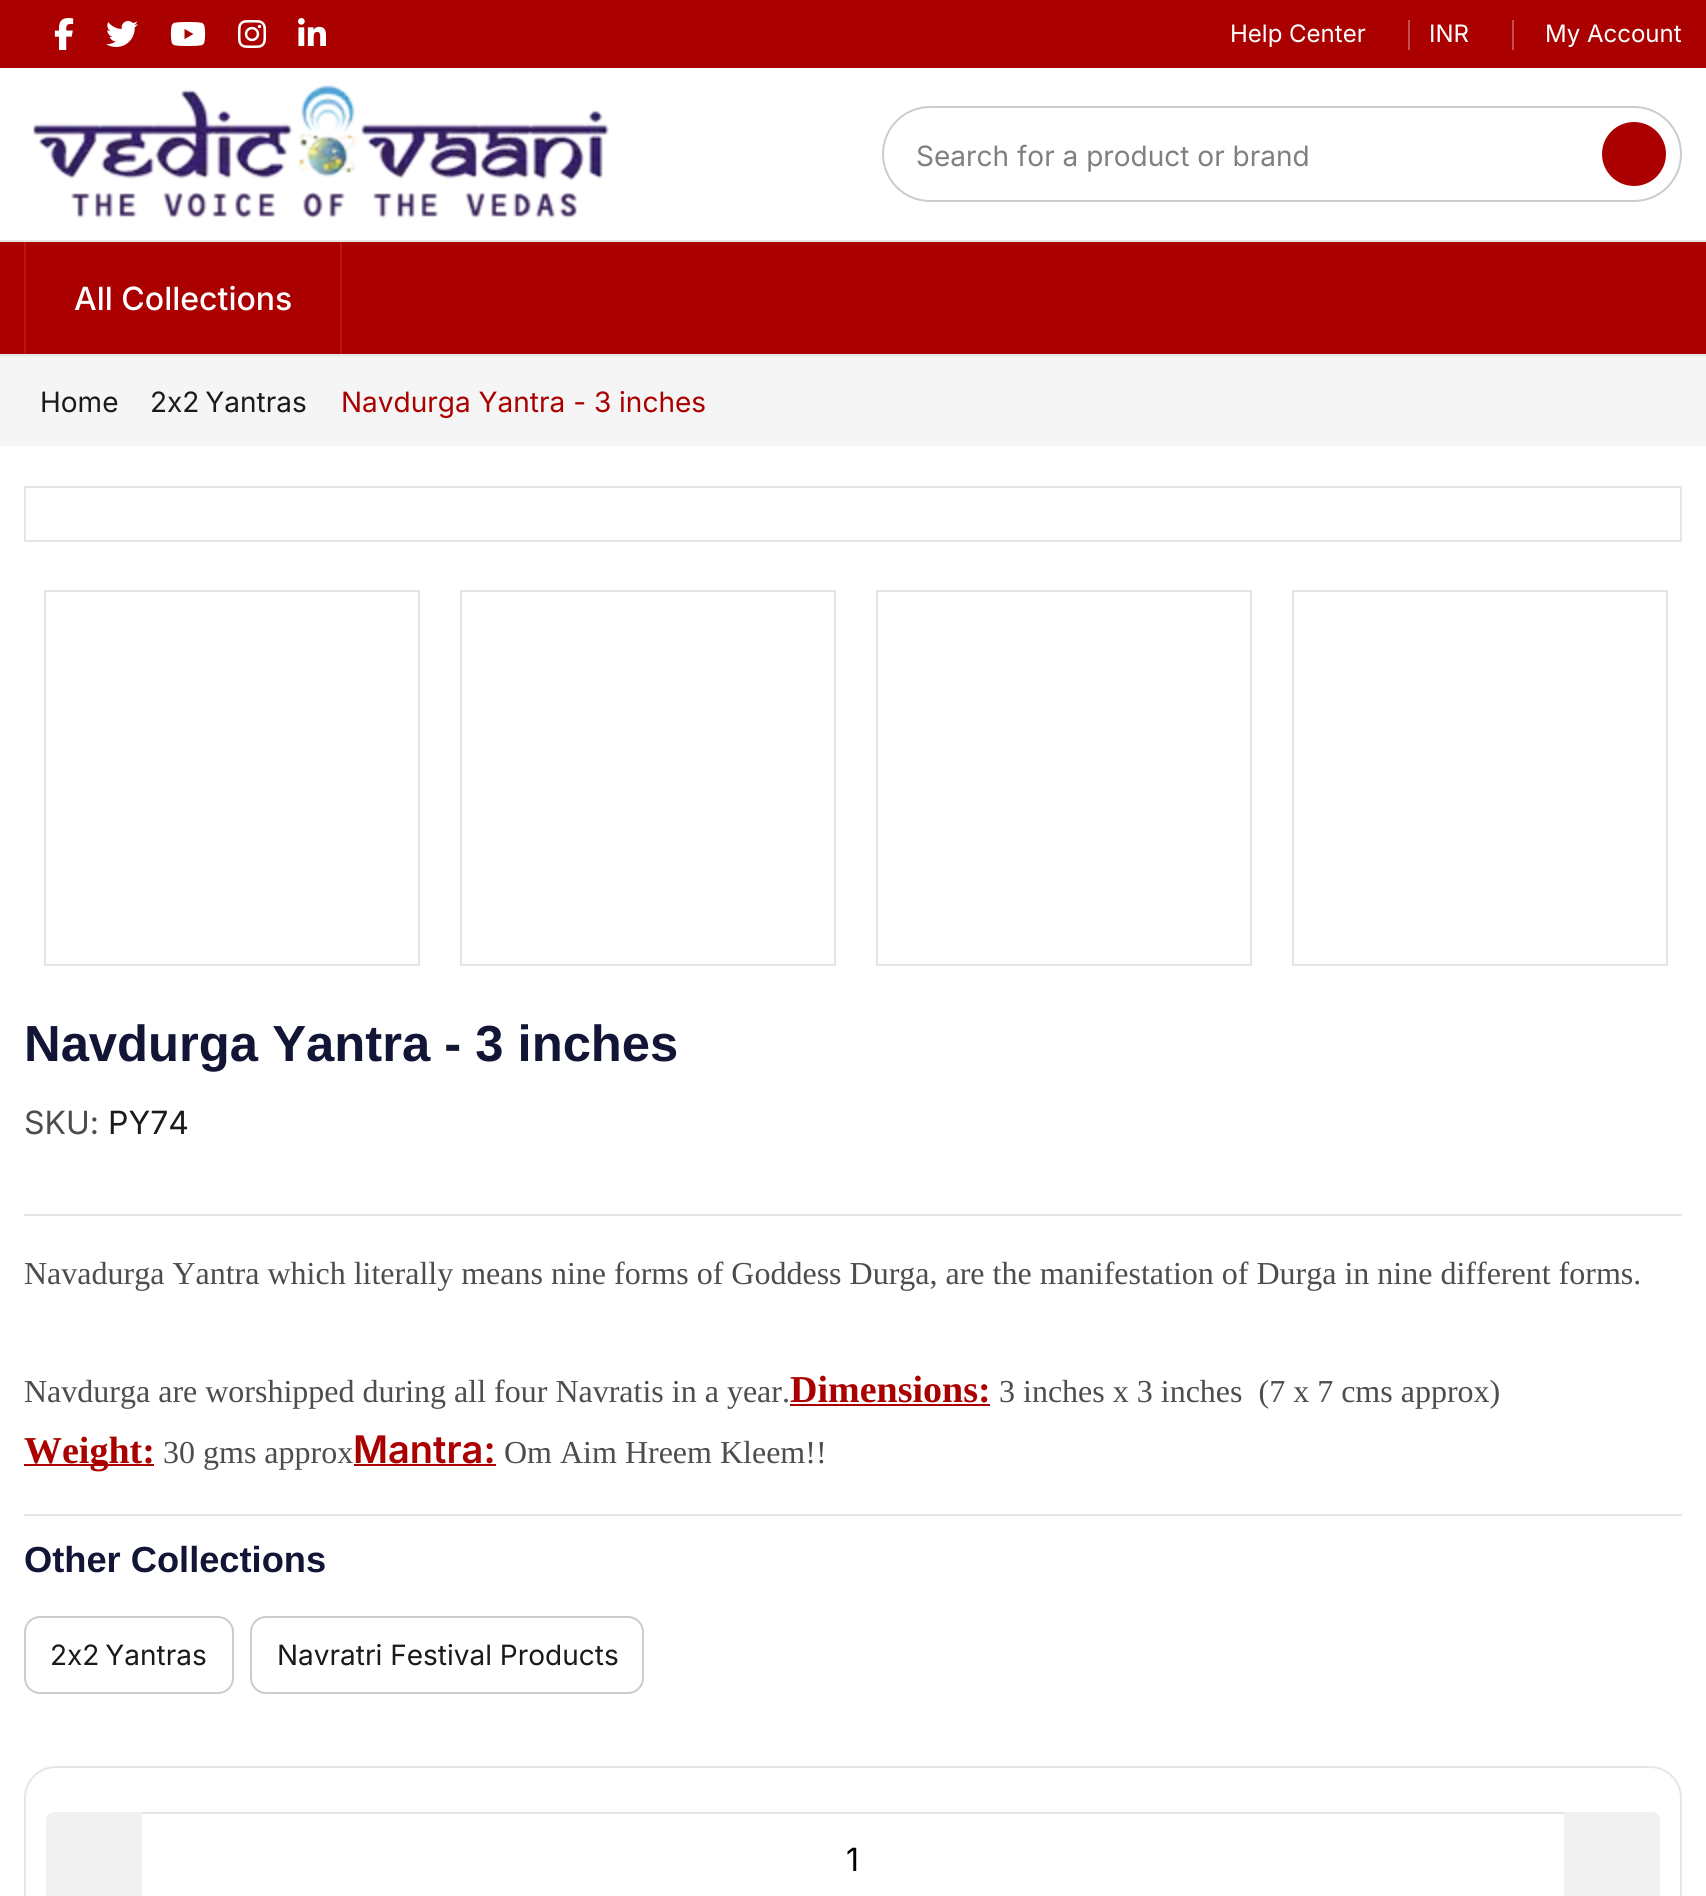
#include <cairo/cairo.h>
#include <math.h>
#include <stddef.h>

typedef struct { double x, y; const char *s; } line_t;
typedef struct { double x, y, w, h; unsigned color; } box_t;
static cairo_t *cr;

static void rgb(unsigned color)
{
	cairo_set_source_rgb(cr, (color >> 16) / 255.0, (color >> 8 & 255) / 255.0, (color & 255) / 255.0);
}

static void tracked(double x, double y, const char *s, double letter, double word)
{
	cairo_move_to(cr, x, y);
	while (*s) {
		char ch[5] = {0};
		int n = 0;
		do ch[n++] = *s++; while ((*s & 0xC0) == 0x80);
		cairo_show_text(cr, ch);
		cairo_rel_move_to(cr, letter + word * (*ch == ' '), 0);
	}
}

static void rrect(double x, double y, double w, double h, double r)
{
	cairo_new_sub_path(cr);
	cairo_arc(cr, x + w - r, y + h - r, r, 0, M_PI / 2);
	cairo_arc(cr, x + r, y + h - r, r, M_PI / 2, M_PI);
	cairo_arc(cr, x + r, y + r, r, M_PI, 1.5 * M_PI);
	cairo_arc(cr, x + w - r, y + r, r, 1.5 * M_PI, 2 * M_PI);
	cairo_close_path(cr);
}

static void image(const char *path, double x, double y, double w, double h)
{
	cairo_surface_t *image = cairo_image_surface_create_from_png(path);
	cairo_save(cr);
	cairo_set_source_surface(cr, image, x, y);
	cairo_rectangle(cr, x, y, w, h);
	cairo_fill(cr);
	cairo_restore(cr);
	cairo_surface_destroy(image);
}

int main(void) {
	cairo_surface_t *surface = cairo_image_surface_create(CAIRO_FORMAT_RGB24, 1706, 1896);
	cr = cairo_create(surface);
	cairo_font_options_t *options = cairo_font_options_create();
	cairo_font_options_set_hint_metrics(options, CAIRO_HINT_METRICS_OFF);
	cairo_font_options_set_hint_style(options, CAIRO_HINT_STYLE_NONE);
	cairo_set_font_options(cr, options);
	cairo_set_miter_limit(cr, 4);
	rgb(0xffffff);
	cairo_paint(cr);
	rgb(0xaa0000);
	cairo_rectangle(cr, 0, 0, 1706, 68);
	cairo_fill(cr);
	image("img/1.png", 54, 18, 20, 32);
	image("img/2.png", 106, 21, 32, 26);
	image("img/3.png", 170, 22, 36, 24);
	image("img/4.png", 238, 20, 28, 28);
	image("img/5.png", 298, 18, 28, 28);
	{
		static const box_t items[] = {
			{1408, 20, 2, 30, 0xc44d4d},
			{1512, 20, 2, 30, 0xc44d4d},
			{0, 240, 1706, 2, 0xe6e6e6},
		};
		for (size_t i = 0; i < sizeof items / sizeof *items; i++) {
			rgb(items[i].color);
			cairo_rectangle(cr, items[i].x, items[i].y, items[i].w, items[i].h);
			cairo_fill(cr);
		}
	}
	image("img/6.png", 33, 85, 576, 134);
	rrect(883, 107, 798, 94, 47);
	rgb(0xcccccc);
	cairo_stroke(cr);
	rgb(0xaa0000);
	cairo_arc(cr, 1634, 154, 32, 0, 2 * M_PI);
	cairo_fill(cr);
	{
		static const box_t items[] = {
			{0, 242, 1706, 112, 0xaa0000},
			{0, 354, 1706, 2, 0xe6e6e6},
			{340, 242, 2, 112, 0xbe1313},
			{24, 242, 2, 112, 0xbe1313},
			{0, 356, 1706, 90, 0xf5f5f5},
		};
		for (size_t i = 0; i < sizeof items / sizeof *items; i++) {
			rgb(items[i].color);
			cairo_rectangle(cr, items[i].x, items[i].y, items[i].w, items[i].h);
			cairo_fill(cr);
		}
	}
	cairo_rectangle(cr, 25, 487, 1656, 54);
	rgb(0xe6e6e6);
	cairo_stroke(cr);
	cairo_rectangle(cr, 45, 591, 374, 374);
	cairo_stroke(cr);
	cairo_rectangle(cr, 461, 591, 374, 374);
	cairo_stroke(cr);
	cairo_rectangle(cr, 877, 591, 374, 374);
	cairo_stroke(cr);
	cairo_rectangle(cr, 1293, 591, 374, 374);
	cairo_stroke(cr);
	{
		static const box_t items[] = {
			{24, 1214, 1658, 2, 0xe6e6e6},
			{790, 1404, 200, 2, 0xaa0000},
			{24, 1464, 130, 2, 0xaa0000},
			{354, 1464, 142, 2, 0xaa0000},
			{24, 1514, 1658, 2, 0xe6e6e6},
		};
		for (size_t i = 0; i < sizeof items / sizeof *items; i++) {
			rgb(items[i].color);
			cairo_rectangle(cr, items[i].x, items[i].y, items[i].w, items[i].h);
			cairo_fill(cr);
		}
	}
	rrect(25, 1617, 208, 76, 15);
	rgb(0xcccccc);
	cairo_stroke(cr);
	rrect(251, 1617, 392, 76, 15);
	cairo_stroke(cr);
	rrect(25, 1767, 1656, 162, 31);
	rgb(0xe6e6e6);
	cairo_stroke(cr);
	rgb(0xf1f1f1);
	cairo_new_path(cr);
	cairo_move_to(cr, 54, 1812);
	cairo_line_to(cr, 142, 1812);
	cairo_line_to(cr, 142, 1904);
	cairo_line_to(cr, 54, 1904);
	cairo_curve_to(cr, 49.5, 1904, 46, 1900.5, 46, 1896);
	cairo_line_to(cr, 46, 1820);
	cairo_curve_to(cr, 46, 1815.5, 49.5, 1812, 54, 1812);
	cairo_close_path(cr);
	cairo_fill(cr);
	rgb(0xe6e6e6);
	cairo_rectangle(cr, 142, 1812, 1422, 2);
	cairo_fill(cr);
	rgb(0xf1f1f1);
	cairo_new_path(cr);
	cairo_move_to(cr, 1564, 1812);
	cairo_line_to(cr, 1652, 1812);
	cairo_curve_to(cr, 1656.5, 1812, 1660, 1815.5, 1660, 1820);
	cairo_line_to(cr, 1660, 1896);
	cairo_curve_to(cr, 1660, 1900.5, 1656.5, 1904, 1652, 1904);
	cairo_line_to(cr, 1564, 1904);
	cairo_close_path(cr);
	cairo_fill(cr);
	cairo_select_font_face(cr, "Inter", CAIRO_FONT_SLANT_NORMAL, CAIRO_FONT_WEIGHT_NORMAL);
	cairo_set_font_size(cr, 24);
	rgb(0xffffff);
	{
		static const line_t items[] = {
			{1230, 42, "Help Center"},
			{1429, 42, "INR"},
			{1545, 42, "My Account"},
		};
		for (size_t i = 0; i < sizeof items / sizeof *items; i++) {
			cairo_move_to(cr, items[i].x, items[i].y);
			cairo_show_text(cr, items[i].s);
		}
	}
	cairo_set_font_size(cr, 28);
	rgb(0x808080);
	cairo_move_to(cr, 916, 166);
	cairo_show_text(cr, "Search for a product or brand");
	cairo_select_font_face(cr, "Inter Medium", CAIRO_FONT_SLANT_NORMAL, CAIRO_FONT_WEIGHT_NORMAL);
	cairo_set_font_size(cr, 32);
	rgb(0xffffff);
	cairo_move_to(cr, 74, 310);
	cairo_show_text(cr, "All Collections");
	cairo_select_font_face(cr, "Inter", CAIRO_FONT_SLANT_NORMAL, CAIRO_FONT_WEIGHT_NORMAL);
	cairo_set_font_size(cr, 28);
	rgb(0x1a1a1a);
	cairo_move_to(cr, 40, 412);
	cairo_show_text(cr, "Home");
	tracked(150, 412, "2x2 Yantras", 0, -2);
	rgb(0xaa0000);
	cairo_move_to(cr, 341, 412);
	cairo_show_text(cr, "Navdurga Yantra - 3 inches");
	cairo_select_font_face(cr, "Liberation Sans", CAIRO_FONT_SLANT_NORMAL, CAIRO_FONT_WEIGHT_BOLD);
	cairo_set_font_size(cr, 50.75);
	rgb(0x121535);
	cairo_move_to(cr, 24, 1061);
	cairo_show_text(cr, "Navdurga Yantra - 3 inches");
	cairo_select_font_face(cr, "Inter", CAIRO_FONT_SLANT_NORMAL, CAIRO_FONT_WEIGHT_NORMAL);
	cairo_set_font_size(cr, 32);
	rgb(0x4d4d4d);
	cairo_move_to(cr, 24, 1134);
	cairo_show_text(cr, "SKU:");
	rgb(0x1a1a1a);
	cairo_move_to(cr, 108, 1134);
	cairo_show_text(cr, "PY74");
	cairo_select_font_face(cr, "Liberation Serif", CAIRO_FONT_SLANT_NORMAL, CAIRO_FONT_WEIGHT_NORMAL);
	rgb(0x4d4d4d);
	cairo_move_to(cr, 24, 1284);
	cairo_show_text(cr, "Navadurga Yantra which literally means nine forms of Goddess Durga, are the manifestation of Durga in nine different forms.");
	cairo_move_to(cr, 24, 1402);
	cairo_show_text(cr, "Navdurga are worshipped during all four Navratis in a year.");
	cairo_select_font_face(cr, "Liberation Serif", CAIRO_FONT_SLANT_NORMAL, CAIRO_FONT_WEIGHT_BOLD);
	cairo_set_font_size(cr, 38);
	rgb(0xaa0000);
	cairo_move_to(cr, 790, 1402);
	cairo_show_text(cr, "Dimensions:");
	cairo_select_font_face(cr, "Liberation Serif", CAIRO_FONT_SLANT_NORMAL, CAIRO_FONT_WEIGHT_NORMAL);
	cairo_set_font_size(cr, 32);
	rgb(0x4d4d4d);
	cairo_move_to(cr, 999, 1402);
	cairo_show_text(cr, "3 inches x 3 inches  (7 x 7 cms approx)");
	cairo_select_font_face(cr, "Liberation Serif", CAIRO_FONT_SLANT_NORMAL, CAIRO_FONT_WEIGHT_BOLD);
	cairo_set_font_size(cr, 38);
	rgb(0xaa0000);
	cairo_move_to(cr, 24, 1463);
	cairo_show_text(cr, "Weight:");
	cairo_select_font_face(cr, "Liberation Serif", CAIRO_FONT_SLANT_NORMAL, CAIRO_FONT_WEIGHT_NORMAL);
	cairo_set_font_size(cr, 32);
	rgb(0x4d4d4d);
	cairo_move_to(cr, 163, 1463);
	cairo_show_text(cr, "30 gms approx");
	cairo_select_font_face(cr, "Inter SemiBold", CAIRO_FONT_SLANT_NORMAL, CAIRO_FONT_WEIGHT_NORMAL);
	cairo_set_font_size(cr, 38);
	rgb(0xaa0000);
	cairo_move_to(cr, 353, 1463);
	cairo_show_text(cr, "Mantra:");
	cairo_select_font_face(cr, "Liberation Serif", CAIRO_FONT_SLANT_NORMAL, CAIRO_FONT_WEIGHT_NORMAL);
	cairo_set_font_size(cr, 32);
	rgb(0x4d4d4d);
	cairo_move_to(cr, 504, 1463);
	cairo_show_text(cr, "Om Aim Hreem Kleem!!");
	cairo_select_font_face(cr, "Liberation Sans", CAIRO_FONT_SLANT_NORMAL, CAIRO_FONT_WEIGHT_BOLD);
	cairo_set_font_size(cr, 36.25);
	rgb(0x121535);
	cairo_move_to(cr, 24, 1572);
	cairo_show_text(cr, "Other Collections");
	cairo_select_font_face(cr, "Inter", CAIRO_FONT_SLANT_NORMAL, CAIRO_FONT_WEIGHT_NORMAL);
	cairo_set_font_size(cr, 28);
	rgb(0x1a1a1a);
	tracked(50, 1665, "2x2 Yantras", 0, -2);
	cairo_move_to(cr, 277, 1665);
	cairo_show_text(cr, "Navratri Festival Products");
	cairo_set_font_size(cr, 32);
	rgb(0x000000);
	cairo_move_to(cr, 846, 1871);
	cairo_show_text(cr, "1");
	cairo_surface_write_to_png(surface, "page.png");
	cairo_font_options_destroy(options);
	cairo_destroy(cr);
	cairo_surface_destroy(surface);
	return 0;
}
